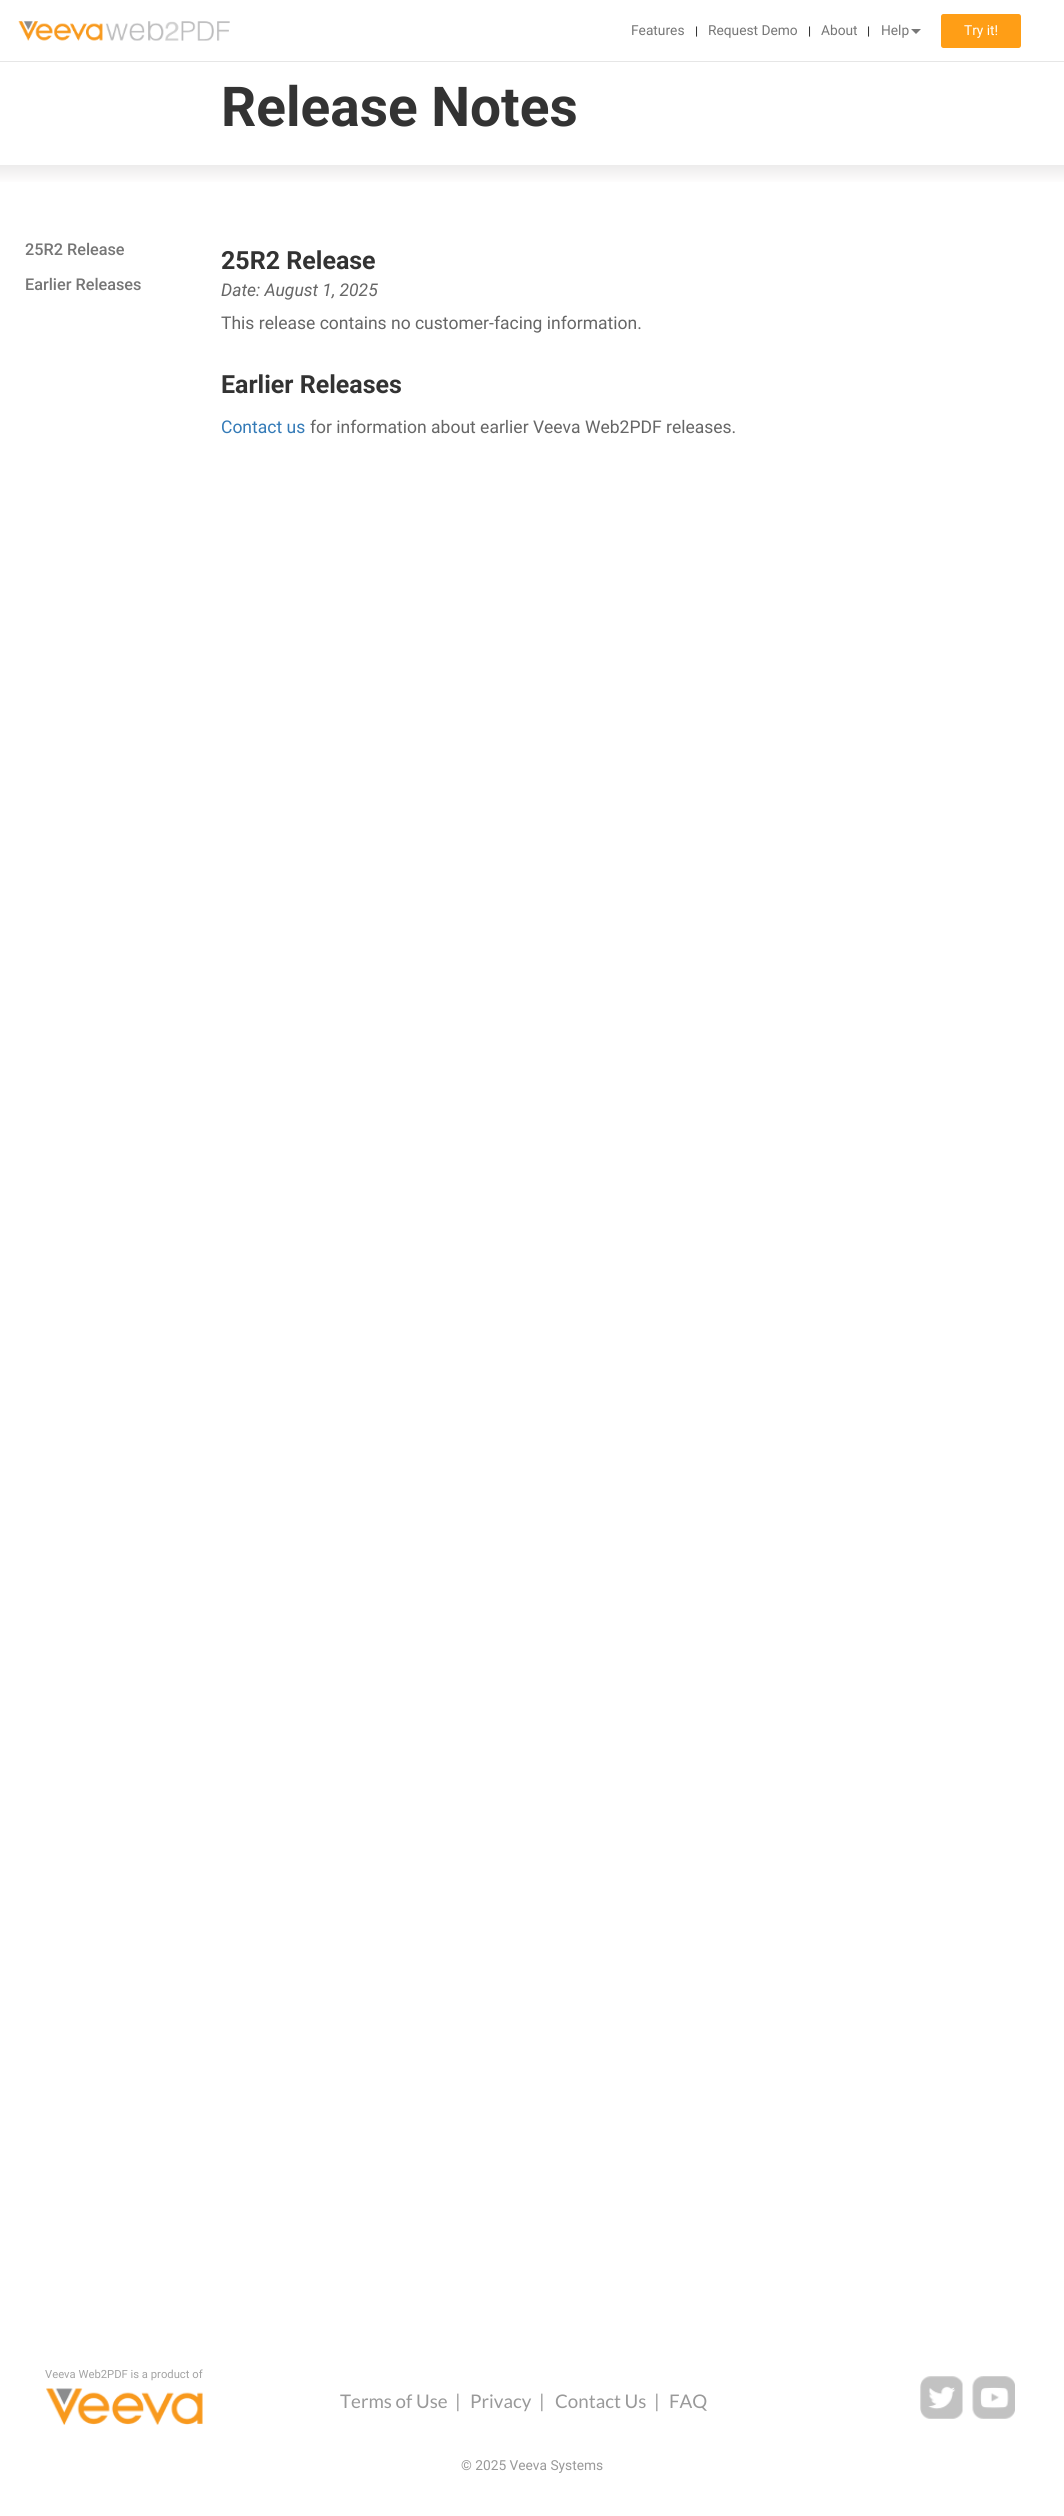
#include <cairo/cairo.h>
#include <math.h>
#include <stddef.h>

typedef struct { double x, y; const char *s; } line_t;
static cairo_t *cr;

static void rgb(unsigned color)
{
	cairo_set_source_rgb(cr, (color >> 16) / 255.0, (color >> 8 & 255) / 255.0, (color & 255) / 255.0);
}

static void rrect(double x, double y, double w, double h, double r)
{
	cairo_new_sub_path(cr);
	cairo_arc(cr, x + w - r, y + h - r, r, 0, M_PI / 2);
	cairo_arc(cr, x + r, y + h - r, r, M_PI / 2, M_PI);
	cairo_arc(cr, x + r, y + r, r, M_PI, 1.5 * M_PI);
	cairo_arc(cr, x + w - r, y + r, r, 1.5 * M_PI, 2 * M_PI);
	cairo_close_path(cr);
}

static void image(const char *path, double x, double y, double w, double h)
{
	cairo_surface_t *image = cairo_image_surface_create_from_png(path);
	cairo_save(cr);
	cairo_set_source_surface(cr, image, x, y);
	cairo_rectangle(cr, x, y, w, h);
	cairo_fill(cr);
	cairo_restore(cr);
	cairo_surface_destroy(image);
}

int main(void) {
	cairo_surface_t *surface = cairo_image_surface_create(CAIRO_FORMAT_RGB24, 1064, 2516);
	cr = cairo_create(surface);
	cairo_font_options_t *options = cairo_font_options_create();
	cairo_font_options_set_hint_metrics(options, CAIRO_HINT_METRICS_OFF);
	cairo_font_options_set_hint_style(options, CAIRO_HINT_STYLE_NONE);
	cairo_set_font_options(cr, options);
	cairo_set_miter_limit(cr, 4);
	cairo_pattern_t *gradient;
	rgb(0xffffff);
	cairo_paint(cr);
	rgb(0xe6e6e6);
	cairo_rectangle(cr, 0, 61, 1064, 1);
	cairo_fill(cr);
	image("img/1.png", 18, 21, 212, 20);
	rgb(0x777777);
	cairo_new_path(cr);
	cairo_move_to(cr, 911, 29);
	cairo_line_to(cr, 921, 29);
	cairo_line_to(cr, 916, 34);
	cairo_close_path(cr);
	cairo_fill(cr);
	rgb(0xff9e16);
	rrect(941, 14, 80, 34, 2.5);
	cairo_fill(cr);
	gradient = cairo_pattern_create_linear(533, 165, 533, 184);
	cairo_pattern_add_color_stop_rgba(gradient, 0, 0.929, 0.925, 0.925, 1);
	cairo_pattern_add_color_stop_rgba(gradient, 1, 1, 1, 1, 1);
	cairo_set_source(cr, gradient);
	cairo_pattern_destroy(gradient);
	cairo_rectangle(cr, 0, 165, 1064, 17);
	cairo_fill(cr);
	image("img/2.png", 46, 2388, 157, 37);
	image("img/3.png", 920, 2376, 43, 43);
	image("img/4.png", 972, 2376, 43, 43);
	cairo_select_font_face(cr, "Roboto", CAIRO_FONT_SLANT_NORMAL, CAIRO_FONT_WEIGHT_NORMAL);
	cairo_set_font_size(cr, 13.75);
	rgb(0x767676);
	cairo_move_to(cr, 631, 35);
	cairo_show_text(cr, "Features");
	cairo_select_font_face(cr, "Roboto", CAIRO_FONT_SLANT_NORMAL, CAIRO_FONT_WEIGHT_BOLD);
	cairo_set_font_size(cr, 12);
	rgb(0x333333);
	cairo_move_to(cr, 695, 35);
	cairo_show_text(cr, "|");
	cairo_select_font_face(cr, "Roboto", CAIRO_FONT_SLANT_NORMAL, CAIRO_FONT_WEIGHT_NORMAL);
	cairo_set_font_size(cr, 13.75);
	rgb(0x767676);
	cairo_move_to(cr, 708, 35);
	cairo_show_text(cr, "Request Demo");
	cairo_select_font_face(cr, "Roboto", CAIRO_FONT_SLANT_NORMAL, CAIRO_FONT_WEIGHT_BOLD);
	cairo_set_font_size(cr, 12);
	rgb(0x333333);
	cairo_move_to(cr, 808, 35);
	cairo_show_text(cr, "|");
	cairo_select_font_face(cr, "Roboto", CAIRO_FONT_SLANT_NORMAL, CAIRO_FONT_WEIGHT_NORMAL);
	cairo_set_font_size(cr, 13.75);
	rgb(0x767676);
	cairo_move_to(cr, 821, 35);
	cairo_show_text(cr, "About");
	cairo_select_font_face(cr, "Roboto", CAIRO_FONT_SLANT_NORMAL, CAIRO_FONT_WEIGHT_BOLD);
	cairo_set_font_size(cr, 12);
	rgb(0x333333);
	cairo_move_to(cr, 867, 35);
	cairo_show_text(cr, "|");
	cairo_select_font_face(cr, "Roboto", CAIRO_FONT_SLANT_NORMAL, CAIRO_FONT_WEIGHT_NORMAL);
	cairo_set_font_size(cr, 13.75);
	rgb(0x767676);
	cairo_move_to(cr, 881, 35);
	cairo_show_text(cr, "Help");
	rgb(0xffffff);
	cairo_move_to(cr, 964, 35);
	cairo_show_text(cr, "Try it!");
	cairo_select_font_face(cr, "Roboto", CAIRO_FONT_SLANT_NORMAL, CAIRO_FONT_WEIGHT_BOLD);
	cairo_set_font_size(cr, 55);
	rgb(0x333333);
	cairo_move_to(cr, 221, 126);
	cairo_show_text(cr, "Release Notes");
	cairo_select_font_face(cr, "Roboto Medium", CAIRO_FONT_SLANT_NORMAL, CAIRO_FONT_WEIGHT_NORMAL);
	cairo_set_font_size(cr, 16.25);
	rgb(0x767676);
	cairo_move_to(cr, 25, 255);
	cairo_show_text(cr, "25R2 Release");
	cairo_move_to(cr, 25, 290);
	cairo_show_text(cr, "Earlier Releases");
	cairo_select_font_face(cr, "Roboto", CAIRO_FONT_SLANT_NORMAL, CAIRO_FONT_WEIGHT_BOLD);
	cairo_set_font_size(cr, 25);
	rgb(0x333333);
	cairo_move_to(cr, 221, 269);
	cairo_show_text(cr, "25R2 Release");
	cairo_select_font_face(cr, "Roboto", CAIRO_FONT_SLANT_ITALIC, CAIRO_FONT_WEIGHT_NORMAL);
	cairo_set_font_size(cr, 17.5);
	rgb(0x666666);
	cairo_move_to(cr, 221, 296);
	cairo_show_text(cr, "Date: August 1, 2025");
	cairo_select_font_face(cr, "Roboto", CAIRO_FONT_SLANT_NORMAL, CAIRO_FONT_WEIGHT_NORMAL);
	cairo_move_to(cr, 221, 329);
	cairo_show_text(cr, "This release contains no customer-facing information.");
	cairo_select_font_face(cr, "Roboto", CAIRO_FONT_SLANT_NORMAL, CAIRO_FONT_WEIGHT_BOLD);
	cairo_set_font_size(cr, 25);
	rgb(0x333333);
	cairo_move_to(cr, 221, 393);
	cairo_show_text(cr, "Earlier Releases");
	cairo_select_font_face(cr, "Roboto", CAIRO_FONT_SLANT_NORMAL, CAIRO_FONT_WEIGHT_NORMAL);
	cairo_set_font_size(cr, 17.5);
	rgb(0x337ab7);
	cairo_move_to(cr, 221, 433);
	cairo_show_text(cr, "Contact us");
	rgb(0x666666);
	cairo_move_to(cr, 310, 433);
	cairo_show_text(cr, "for information about earlier Veeva Web2PDF releases.");
	cairo_set_font_size(cr, 11.25);
	rgb(0xa3a3a3);
	cairo_move_to(cr, 45, 2378);
	cairo_show_text(cr, "Veeva Web2PDF is a product of");
	cairo_select_font_face(cr, "Lato", CAIRO_FONT_SLANT_NORMAL, CAIRO_FONT_WEIGHT_NORMAL);
	cairo_set_font_size(cr, 18.75);
	rgb(0x999999);
	{
		static const line_t items[] = {
			{340, 2408, "Terms of Use"},
			{455, 2408, "|"},
			{470, 2408, "Privacy"},
			{539, 2408, "|"},
			{555, 2408, "Contact Us"},
			{654, 2408, "|"},
			{669, 2408, "FAQ"},
		};
		for (size_t i = 0; i < sizeof items / sizeof *items; i++) {
			cairo_move_to(cr, items[i].x, items[i].y);
			cairo_show_text(cr, items[i].s);
		}
	}
	cairo_select_font_face(cr, "Roboto", CAIRO_FONT_SLANT_NORMAL, CAIRO_FONT_WEIGHT_NORMAL);
	cairo_set_font_size(cr, 13.75);
	cairo_move_to(cr, 461, 2470);
	cairo_show_text(cr, "© 2025 Veeva Systems");
	cairo_surface_write_to_png(surface, "page.png");
	cairo_font_options_destroy(options);
	cairo_destroy(cr);
	cairo_surface_destroy(surface);
	return 0;
}
